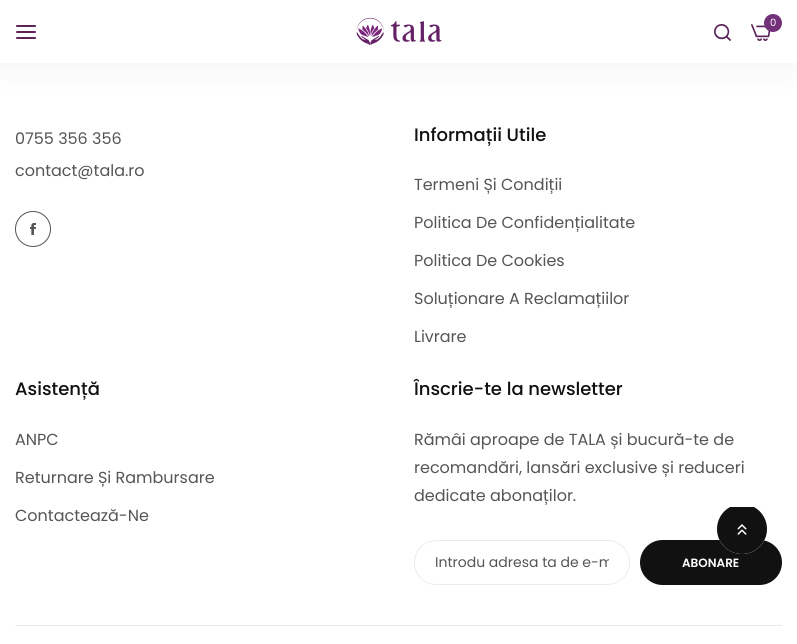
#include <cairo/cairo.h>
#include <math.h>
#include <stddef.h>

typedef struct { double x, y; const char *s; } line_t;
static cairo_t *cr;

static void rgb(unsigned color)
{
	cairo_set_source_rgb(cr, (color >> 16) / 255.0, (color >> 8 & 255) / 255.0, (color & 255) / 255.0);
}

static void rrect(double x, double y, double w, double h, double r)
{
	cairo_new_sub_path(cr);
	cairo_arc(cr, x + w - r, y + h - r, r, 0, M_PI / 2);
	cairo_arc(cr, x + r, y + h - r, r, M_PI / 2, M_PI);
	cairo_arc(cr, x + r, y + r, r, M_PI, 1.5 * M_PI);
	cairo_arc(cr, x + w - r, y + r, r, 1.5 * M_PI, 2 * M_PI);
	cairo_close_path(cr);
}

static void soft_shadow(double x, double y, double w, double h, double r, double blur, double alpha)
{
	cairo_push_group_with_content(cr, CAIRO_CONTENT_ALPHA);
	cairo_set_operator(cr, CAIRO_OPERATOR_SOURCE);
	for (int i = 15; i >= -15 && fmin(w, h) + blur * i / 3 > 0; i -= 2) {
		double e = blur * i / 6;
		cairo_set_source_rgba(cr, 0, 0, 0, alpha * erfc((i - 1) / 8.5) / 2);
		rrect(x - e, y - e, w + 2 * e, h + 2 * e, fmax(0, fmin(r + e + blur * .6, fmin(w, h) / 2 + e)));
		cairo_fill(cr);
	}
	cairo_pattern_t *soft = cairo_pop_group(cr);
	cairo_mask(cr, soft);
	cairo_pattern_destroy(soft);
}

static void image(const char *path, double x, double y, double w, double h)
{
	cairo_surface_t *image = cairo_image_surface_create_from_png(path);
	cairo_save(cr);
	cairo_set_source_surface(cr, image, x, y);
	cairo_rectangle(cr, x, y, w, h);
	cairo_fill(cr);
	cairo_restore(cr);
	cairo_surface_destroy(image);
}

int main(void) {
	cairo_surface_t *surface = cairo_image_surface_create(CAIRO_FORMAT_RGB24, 797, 644);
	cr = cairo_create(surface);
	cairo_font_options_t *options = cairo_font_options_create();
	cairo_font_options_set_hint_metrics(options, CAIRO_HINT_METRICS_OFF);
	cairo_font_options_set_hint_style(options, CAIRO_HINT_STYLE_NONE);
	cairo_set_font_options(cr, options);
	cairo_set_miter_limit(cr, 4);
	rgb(0xffffff);
	cairo_paint(cr);
	rgb(0x000000);
	soft_shadow(0, 5, 797, 63, 0, 15, 0.05);
	rgb(0xffffff);
	cairo_rectangle(cr, 0, 0, 797, 63);
	cairo_fill(cr);
	image("img/1.png", 356, 17, 86, 28);
	image("img/2.png", 751, 24, 20, 17);
	rgb(0x723179);
	cairo_arc(cr, 773, 23, 9, 0, 2 * M_PI);
	cairo_fill(cr);
	image("img/3.png", 714, 24, 17, 17);
	image("img/4.png", 16, 25, 20, 14);
	image("img/5.png", 15, 211, 36, 36);
	rrect(414.5, 540.5, 215, 44, 22);
	rgb(0xebebeb);
	cairo_set_line_width(cr, 1);
	cairo_stroke(cr);
	rgb(0x111111);
	rrect(640, 540, 142, 45, 22.5);
	cairo_fill(cr);
	rgb(0xebebeb);
	cairo_rectangle(cr, 15, 625, 767, 1);
	cairo_fill(cr);
	rgb(0xffffff);
	cairo_arc(cr, 742, 529, 25, 0, 2 * M_PI);
	cairo_fill(cr);
	cairo_save(cr);
	rrect(717, 504, 50, 50, 25);
	cairo_clip(cr);
	rgb(0x111111);
	cairo_new_path(cr);
	cairo_move_to(cr, 717, 507);
	cairo_line_to(cr, 767, 507);
	cairo_line_to(cr, 767, 529);
	cairo_curve_to(cr, 767, 543, 756, 554, 742, 554);
	cairo_curve_to(cr, 728, 554, 717, 543, 717, 529);
	cairo_close_path(cr);
	cairo_fill(cr);
	cairo_restore(cr);
	image("img/6.png", 737, 524, 10, 11);
	cairo_select_font_face(cr, "Poppins", CAIRO_FONT_SLANT_NORMAL, CAIRO_FONT_WEIGHT_NORMAL);
	cairo_set_font_size(cr, 10);
	cairo_move_to(cr, 770, 26);
	cairo_show_text(cr, "0");
	cairo_set_font_size(cr, 16);
	rgb(0x555555);
	cairo_move_to(cr, 15, 144);
	cairo_show_text(cr, "0755 356 356");
	cairo_move_to(cr, 15, 176);
	cairo_show_text(cr, "contact@tala.ro");
	cairo_select_font_face(cr, "Poppins Medium", CAIRO_FONT_SLANT_NORMAL, CAIRO_FONT_WEIGHT_NORMAL);
	cairo_set_font_size(cr, 18);
	rgb(0x111111);
	cairo_move_to(cr, 414, 141);
	cairo_show_text(cr, "Informații Utile");
	cairo_select_font_face(cr, "Poppins", CAIRO_FONT_SLANT_NORMAL, CAIRO_FONT_WEIGHT_NORMAL);
	cairo_set_font_size(cr, 16);
	rgb(0x555555);
	{
		static const line_t items[] = {
			{414, 190, "Termeni Și Condiții"},
			{414, 228, "Politica De Confidențialitate"},
			{414, 266, "Politica De Cookies"},
			{414, 304, "Soluționare A Reclamațiilor"},
			{414, 342, "Livrare"},
		};
		for (size_t i = 0; i < sizeof items / sizeof *items; i++) {
			cairo_move_to(cr, items[i].x, items[i].y);
			cairo_show_text(cr, items[i].s);
		}
	}
	cairo_select_font_face(cr, "Poppins Medium", CAIRO_FONT_SLANT_NORMAL, CAIRO_FONT_WEIGHT_NORMAL);
	cairo_set_font_size(cr, 18);
	rgb(0x111111);
	cairo_move_to(cr, 15, 395);
	cairo_show_text(cr, "Asistență");
	cairo_select_font_face(cr, "Poppins", CAIRO_FONT_SLANT_NORMAL, CAIRO_FONT_WEIGHT_NORMAL);
	cairo_set_font_size(cr, 16);
	rgb(0x555555);
	{
		static const line_t items[] = {
			{15, 445, "ANPC"},
			{15, 483, "Returnare Și Rambursare"},
			{15, 521, "Contactează-Ne"},
		};
		for (size_t i = 0; i < sizeof items / sizeof *items; i++) {
			cairo_move_to(cr, items[i].x, items[i].y);
			cairo_show_text(cr, items[i].s);
		}
	}
	cairo_select_font_face(cr, "Poppins Medium", CAIRO_FONT_SLANT_NORMAL, CAIRO_FONT_WEIGHT_NORMAL);
	cairo_set_font_size(cr, 18);
	rgb(0x111111);
	cairo_move_to(cr, 414, 395);
	cairo_show_text(cr, "Înscrie-te la newsletter");
	cairo_select_font_face(cr, "Poppins", CAIRO_FONT_SLANT_NORMAL, CAIRO_FONT_WEIGHT_NORMAL);
	cairo_set_font_size(cr, 16);
	rgb(0x555555);
	{
		static const line_t items[] = {
			{414, 445, "Rămâi aproape de TALA și bucură-te de"},
			{414, 473, "recomandări, lansări exclusive și reduceri"},
			{414, 501, "dedicate abonaților."},
		};
		for (size_t i = 0; i < sizeof items / sizeof *items; i++) {
			cairo_move_to(cr, items[i].x, items[i].y);
			cairo_show_text(cr, items[i].s);
		}
	}
	cairo_save(cr);
	cairo_rectangle(cr, 435, 552, 174, 21);
	cairo_clip(cr);
	cairo_set_font_size(cr, 14);
	cairo_move_to(cr, 435, 567);
	cairo_show_text(cr, "Introdu adresa ta de e-m");
	cairo_restore(cr);
	cairo_select_font_face(cr, "Poppins SemiBold", CAIRO_FONT_SLANT_NORMAL, CAIRO_FONT_WEIGHT_NORMAL);
	cairo_set_font_size(cr, 12);
	rgb(0xffffff);
	cairo_move_to(cr, 682, 567);
	cairo_show_text(cr, "ABONARE");
	cairo_surface_write_to_png(surface, "page.png");
	cairo_font_options_destroy(options);
	cairo_destroy(cr);
	cairo_surface_destroy(surface);
	return 0;
}
